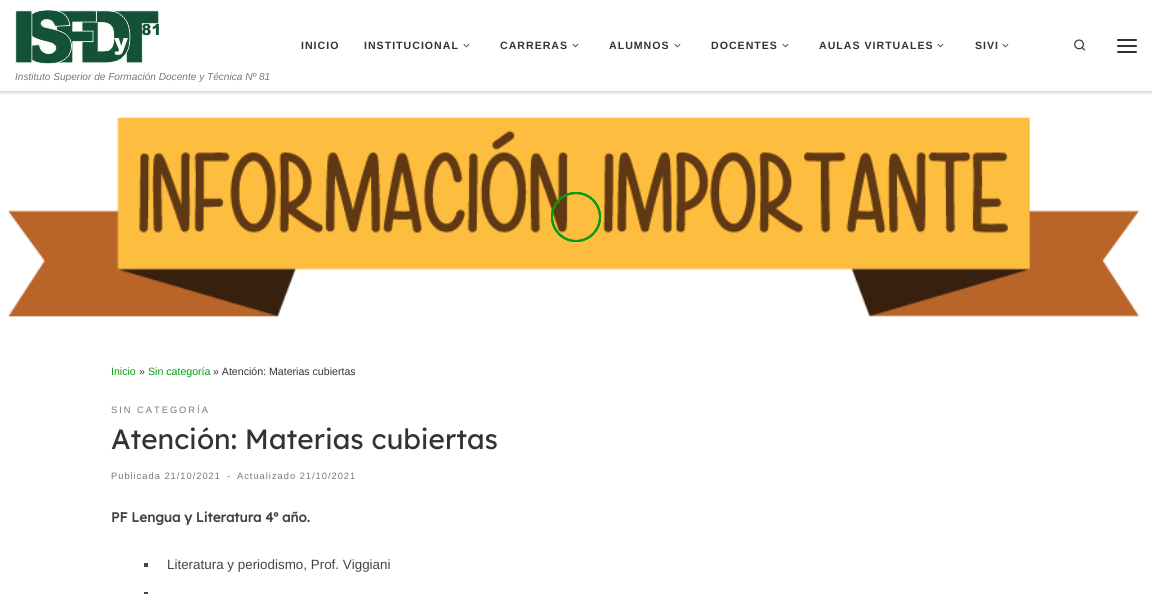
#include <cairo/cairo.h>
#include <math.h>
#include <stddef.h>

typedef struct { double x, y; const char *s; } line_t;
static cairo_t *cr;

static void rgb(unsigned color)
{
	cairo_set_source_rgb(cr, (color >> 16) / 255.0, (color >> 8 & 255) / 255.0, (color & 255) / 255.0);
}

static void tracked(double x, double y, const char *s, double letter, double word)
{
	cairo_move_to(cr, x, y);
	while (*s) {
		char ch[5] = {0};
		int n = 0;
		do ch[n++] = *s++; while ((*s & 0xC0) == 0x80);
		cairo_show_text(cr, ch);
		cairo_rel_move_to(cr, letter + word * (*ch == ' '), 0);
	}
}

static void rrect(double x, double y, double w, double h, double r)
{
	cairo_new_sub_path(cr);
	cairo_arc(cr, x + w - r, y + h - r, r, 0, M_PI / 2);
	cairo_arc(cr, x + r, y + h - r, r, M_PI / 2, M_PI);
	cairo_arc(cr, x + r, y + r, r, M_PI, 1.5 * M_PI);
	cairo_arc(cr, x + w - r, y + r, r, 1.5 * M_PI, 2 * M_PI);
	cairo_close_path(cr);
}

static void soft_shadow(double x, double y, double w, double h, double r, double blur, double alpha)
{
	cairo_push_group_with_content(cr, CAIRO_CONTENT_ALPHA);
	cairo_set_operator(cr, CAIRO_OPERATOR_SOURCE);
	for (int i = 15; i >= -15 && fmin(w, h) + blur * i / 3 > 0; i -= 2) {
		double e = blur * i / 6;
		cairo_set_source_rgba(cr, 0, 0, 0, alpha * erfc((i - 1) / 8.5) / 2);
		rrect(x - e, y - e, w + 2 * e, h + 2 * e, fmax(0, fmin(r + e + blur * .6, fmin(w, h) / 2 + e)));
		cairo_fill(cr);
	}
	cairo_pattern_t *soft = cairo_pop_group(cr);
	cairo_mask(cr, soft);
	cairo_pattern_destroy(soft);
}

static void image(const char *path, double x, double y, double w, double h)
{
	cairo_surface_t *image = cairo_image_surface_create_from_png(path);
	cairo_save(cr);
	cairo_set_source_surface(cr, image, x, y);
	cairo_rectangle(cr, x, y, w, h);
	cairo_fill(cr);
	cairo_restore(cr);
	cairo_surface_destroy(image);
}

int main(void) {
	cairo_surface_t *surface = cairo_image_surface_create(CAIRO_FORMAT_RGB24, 1152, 594);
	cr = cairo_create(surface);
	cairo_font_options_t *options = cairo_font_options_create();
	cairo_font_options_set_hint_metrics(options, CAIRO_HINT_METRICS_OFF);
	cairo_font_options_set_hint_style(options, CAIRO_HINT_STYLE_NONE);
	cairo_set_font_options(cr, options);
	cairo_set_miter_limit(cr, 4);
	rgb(0xffffff);
	cairo_paint(cr);
	cairo_save(cr);
	cairo_rectangle(cr, 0, 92, 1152, 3);
	cairo_clip(cr);
	rgb(0x666666);
	soft_shadow(0, 2, 1152, 92, 0, 1, 0.08);
	cairo_restore(cr);
	rgb(0xefefef);
	cairo_rectangle(cr, 0, 91, 1152, 1);
	cairo_fill(cr);
	cairo_save(cr);
	cairo_rectangle(cr, 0, 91, 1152, 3);
	cairo_clip(cr);
	rgb(0x000000);
	soft_shadow(0, 0, 1152, 91, 0, 2.5, 0.2);
	cairo_restore(cr);
	image("img/1.png", 463, 43, 7, 5);
	image("img/1.png", 572, 43, 7, 5);
	image("img/1.png", 674, 43, 7, 5);
	image("img/1.png", 782, 43, 7, 5);
	image("img/1.png", 937, 43, 7, 5);
	image("img/1.png", 1002, 43, 7, 5);
	image("img/2.png", 1074, 39, 12, 12);
	rgb(0x313131);
	rrect(1117, 39, 20, 2, 1);
	cairo_fill(cr);
	rrect(1117, 45, 20, 2, 1);
	cairo_fill(cr);
	rrect(1117, 51, 20, 2, 1);
	cairo_fill(cr);
	image("img/3.png", 15, 9, 144, 55);
	image("img/4.png", 8, 117, 1132, 200);
	cairo_arc(cr, 576, 217, 24, 0, 2 * M_PI);
	cairo_set_source_rgba(cr, 0.024, 0.608, 0.063, 0.96);
	cairo_stroke(cr);
	cairo_arc(cr, 576, 217, 24, 0, 2 * M_PI);
	cairo_stroke(cr);
	cairo_arc(cr, 576, 217, 24, 0, 2 * M_PI);
	cairo_stroke(cr);
	rgb(0x444444);
	cairo_rectangle(cr, 144, 563, 4, 4);
	cairo_fill(cr);
	cairo_rectangle(cr, 144, 592, 4, 2);
	cairo_fill(cr);
	cairo_select_font_face(cr, "Liberation Sans", CAIRO_FONT_SLANT_NORMAL, CAIRO_FONT_WEIGHT_BOLD);
	cairo_set_font_size(cr, 10.6);
	rgb(0x333333);
	{
		static const line_t items[] = {
			{301, 49, "INICIO"},
			{364, 49, "INSTITUCIONAL"},
			{500, 49, "CARRERAS"},
			{609, 49, "ALUMNOS"},
			{711, 49, "DOCENTES"},
			{819, 49, "AULAS VIRTUALES"},
			{975, 49, "SIVI"},
		};
		for (size_t i = 0; i < sizeof items / sizeof *items; i++) {
			tracked(items[i].x, items[i].y, items[i].s, 1, 0);
		}
	}
	cairo_select_font_face(cr, "Liberation Sans", CAIRO_FONT_SLANT_ITALIC, CAIRO_FONT_WEIGHT_NORMAL);
	cairo_set_font_size(cr, 10.1);
	rgb(0x777777);
	cairo_move_to(cr, 15, 80);
	cairo_show_text(cr, "Instituto Superior de Formación Docente y Técnica Nº 81");
	cairo_select_font_face(cr, "Liberation Sans", CAIRO_FONT_SLANT_NORMAL, CAIRO_FONT_WEIGHT_NORMAL);
	cairo_set_font_size(cr, 10.6);
	rgb(0x069b10);
	cairo_move_to(cr, 111, 375);
	cairo_show_text(cr, "Inicio");
	rgb(0x333333);
	cairo_move_to(cr, 139, 375);
	cairo_show_text(cr, "»");
	rgb(0x069b10);
	cairo_move_to(cr, 148, 375);
	cairo_show_text(cr, "Sin categoría");
	rgb(0x333333);
	cairo_move_to(cr, 213, 375);
	cairo_show_text(cr, "» Atención: Materias cubiertas");
	cairo_set_font_size(cr, 9.3);
	rgb(0x777777);
	tracked(111, 413, "SIN CATEGORÍA", 2, 0);
	cairo_select_font_face(cr, "Lexend", CAIRO_FONT_SLANT_NORMAL, CAIRO_FONT_WEIGHT_NORMAL);
	cairo_set_font_size(cr, 27.9);
	rgb(0x333333);
	cairo_move_to(cr, 111, 449);
	cairo_show_text(cr, "Atención: Materias cubiertas");
	cairo_select_font_face(cr, "Liberation Sans", CAIRO_FONT_SLANT_NORMAL, CAIRO_FONT_WEIGHT_NORMAL);
	cairo_set_font_size(cr, 9.3);
	rgb(0x777777);
	{
		static const line_t items[] = {
			{111, 479, "Publicada 21/10/2021"},
			{227, 479, "-"},
			{237, 479, "Actualizado 21/10/2021"},
		};
		for (size_t i = 0; i < sizeof items / sizeof *items; i++) {
			tracked(items[i].x, items[i].y, items[i].s, 1, 0);
		}
	}
	cairo_select_font_face(cr, "Lexend", CAIRO_FONT_SLANT_NORMAL, CAIRO_FONT_WEIGHT_BOLD);
	cairo_set_font_size(cr, 13.4);
	rgb(0x444444);
	cairo_move_to(cr, 111, 522);
	cairo_show_text(cr, "PF Lengua y Literatura 4º año.");
	cairo_select_font_face(cr, "Liberation Sans", CAIRO_FONT_SLANT_NORMAL, CAIRO_FONT_WEIGHT_NORMAL);
	cairo_move_to(cr, 167, 569);
	cairo_show_text(cr, "Literatura y periodismo, Prof. Viggiani");
	cairo_surface_write_to_png(surface, "page.png");
	cairo_font_options_destroy(options);
	cairo_destroy(cr);
	cairo_surface_destroy(surface);
	return 0;
}
